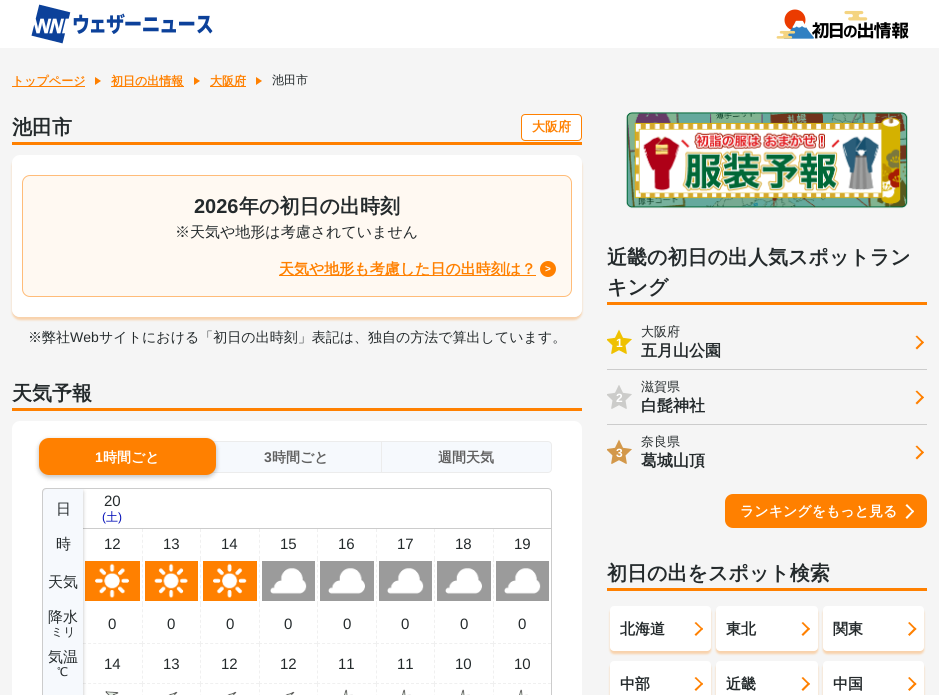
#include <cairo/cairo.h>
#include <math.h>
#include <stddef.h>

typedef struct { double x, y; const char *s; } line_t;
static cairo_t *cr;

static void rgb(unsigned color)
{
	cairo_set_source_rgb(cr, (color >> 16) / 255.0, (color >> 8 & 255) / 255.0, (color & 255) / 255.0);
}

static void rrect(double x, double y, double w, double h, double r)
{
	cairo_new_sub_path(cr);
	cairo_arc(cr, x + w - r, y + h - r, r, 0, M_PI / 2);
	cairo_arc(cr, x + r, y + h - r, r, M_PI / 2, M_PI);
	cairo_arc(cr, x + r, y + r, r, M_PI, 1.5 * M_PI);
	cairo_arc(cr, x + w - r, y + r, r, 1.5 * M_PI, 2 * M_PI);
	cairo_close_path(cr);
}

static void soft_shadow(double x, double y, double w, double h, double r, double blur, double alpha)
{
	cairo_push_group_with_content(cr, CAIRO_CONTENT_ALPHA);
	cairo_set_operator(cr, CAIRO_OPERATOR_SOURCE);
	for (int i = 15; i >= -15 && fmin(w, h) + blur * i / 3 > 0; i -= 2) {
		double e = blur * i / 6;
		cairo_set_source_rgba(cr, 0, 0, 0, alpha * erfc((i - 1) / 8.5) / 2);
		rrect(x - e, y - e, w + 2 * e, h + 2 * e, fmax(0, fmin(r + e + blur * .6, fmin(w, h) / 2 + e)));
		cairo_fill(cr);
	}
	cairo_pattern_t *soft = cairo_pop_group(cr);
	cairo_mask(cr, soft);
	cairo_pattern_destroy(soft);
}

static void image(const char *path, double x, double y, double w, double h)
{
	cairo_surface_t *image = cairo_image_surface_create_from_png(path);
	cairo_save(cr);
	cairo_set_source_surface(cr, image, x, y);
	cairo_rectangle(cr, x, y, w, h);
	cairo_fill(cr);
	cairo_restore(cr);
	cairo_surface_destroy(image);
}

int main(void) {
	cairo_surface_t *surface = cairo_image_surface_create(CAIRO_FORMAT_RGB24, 939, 695);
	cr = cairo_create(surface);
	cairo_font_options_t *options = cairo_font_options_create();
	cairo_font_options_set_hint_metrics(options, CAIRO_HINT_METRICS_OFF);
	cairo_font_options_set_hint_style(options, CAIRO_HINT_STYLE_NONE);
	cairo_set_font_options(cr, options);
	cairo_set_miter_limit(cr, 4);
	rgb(0xf5f5f5);
	cairo_paint(cr);
	rgb(0xffffff);
	cairo_rectangle(cr, 0, 0, 939, 48);
	cairo_fill(cr);
	image("img/1.png", 31, 4, 182, 40);
	image("img/2.png", 776, 9, 133, 30);
	rgb(0xff8000);
	cairo_rectangle(cr, 12, 86, 73, 1);
	cairo_fill(cr);
	cairo_new_path(cr);
	cairo_move_to(cr, 95, 85);
	cairo_line_to(cr, 95, 77);
	cairo_line_to(cr, 101, 81);
	cairo_close_path(cr);
	cairo_fill(cr);
	cairo_rectangle(cr, 111, 86, 73, 1);
	cairo_fill(cr);
	cairo_new_path(cr);
	cairo_move_to(cr, 194, 85);
	cairo_line_to(cr, 194, 77);
	cairo_line_to(cr, 200, 81);
	cairo_close_path(cr);
	cairo_fill(cr);
	cairo_rectangle(cr, 210, 86, 36, 1);
	cairo_fill(cr);
	cairo_new_path(cr);
	cairo_move_to(cr, 256, 85);
	cairo_line_to(cr, 256, 77);
	cairo_line_to(cr, 262, 81);
	cairo_close_path(cr);
	cairo_fill(cr);
	cairo_rectangle(cr, 12, 142, 570, 3);
	cairo_fill(cr);
	rgb(0xffffff);
	rrect(521.5, 114.5, 60, 26, 3.5);
	cairo_fill_preserve(cr);
	rgb(0xff8000);
	cairo_set_line_width(cr, 1);
	cairo_stroke(cr);
	cairo_save(cr);
	cairo_set_fill_rule(cr, CAIRO_FILL_RULE_EVEN_ODD);
	cairo_new_path(cr);
	cairo_move_to(cr, 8, 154);
	cairo_line_to(cr, 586, 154);
	cairo_line_to(cr, 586, 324);
	cairo_line_to(cr, 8, 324);
	cairo_close_path(cr);
	cairo_move_to(cr, 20, 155);
	cairo_line_to(cr, 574, 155);
	cairo_curve_to(cr, 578.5, 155, 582, 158.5, 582, 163);
	cairo_line_to(cr, 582, 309);
	cairo_curve_to(cr, 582, 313.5, 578.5, 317, 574, 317);
	cairo_line_to(cr, 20, 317);
	cairo_curve_to(cr, 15.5, 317, 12, 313.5, 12, 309);
	cairo_line_to(cr, 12, 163);
	cairo_curve_to(cr, 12, 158.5, 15.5, 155, 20, 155);
	cairo_close_path(cr);
	cairo_clip(cr);
	rgb(0xff8000);
	soft_shadow(12, 158, 570, 162, 8, 1, 0.3);
	cairo_restore(cr);
	rgb(0xffffff);
	rrect(12, 155, 570, 162, 8);
	cairo_fill(cr);
	rgb(0xfff9f2);
	rrect(22, 175, 550, 122, 8);
	cairo_fill(cr);
	rrect(22.5, 175.5, 549, 121, 7.5);
	cairo_set_source_rgba(cr, 1, 0.502, 0, 0.5);
	cairo_stroke(cr);
	rgb(0xff8000);
	cairo_rectangle(cr, 279, 275, 257, 1);
	cairo_fill(cr);
	cairo_arc(cr, 548, 269, 8, 0, 2 * M_PI);
	cairo_fill(cr);
	cairo_rectangle(cr, 12, 408, 570, 3);
	cairo_fill(cr);
	rgb(0xffffff);
	rrect(12, 421, 570, 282, 8);
	cairo_fill(cr);
	rgb(0xf6f9fd);
	rrect(42.5, 441.5, 509, 31, 3.5);
	cairo_fill_preserve(cr);
	rgb(0xececec);
	cairo_stroke(cr);
	rgb(0x000000);
	soft_shadow(38, 439, 179, 39, 11, 2, 0.2);
	rgb(0xff8000);
	rrect(39, 438, 177, 37, 10);
	cairo_fill(cr);
	rgb(0xececec);
	cairo_rectangle(cr, 381, 442, 1, 30);
	cairo_fill(cr);
	rrect(42.5, 488.5, 509, 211, 3.5);
	rgb(0xcccccc);
	cairo_stroke(cr);
	cairo_rectangle(cr, 83, 528, 468, 1);
	cairo_fill(cr);
	image("img/3.png", 85, 561, 55, 40);
	cairo_new_path(cr);
	cairo_move_to(cr, 83, 643.5);
	cairo_line_to(cr, 142, 643.5);
	cairo_move_to(cr, 83, 683.5);
	cairo_line_to(cr, 142, 683.5);
	rgb(0xf0f0f0);
	cairo_set_dash(cr, (double[]){3, 2.09}, 2, 0);
	cairo_stroke(cr);
	cairo_save(cr);
	rrect(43, 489, 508, 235, 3);
	cairo_clip(cr);
	rgb(0x000000);
	soft_shadow(43, 489, 40, 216, 4, 2, 0.25);
	cairo_restore(cr);
	rgb(0xf6f9fd);
	cairo_new_path(cr);
	cairo_move_to(cr, 47, 489);
	cairo_line_to(cr, 83, 489);
	cairo_line_to(cr, 83, 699);
	cairo_line_to(cr, 47, 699);
	cairo_curve_to(cr, 45, 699, 43, 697, 43, 695);
	cairo_line_to(cr, 43, 493);
	cairo_curve_to(cr, 43, 491, 45, 489, 47, 489);
	cairo_close_path(cr);
	cairo_fill(cr);
	image("img/4.png", 105, 691, 14, 4);
	cairo_new_path(cr);
	cairo_move_to(cr, 142.5, 529);
	cairo_line_to(cr, 142.5, 559);
	rgb(0xf0f0f0);
	cairo_set_dash(cr, (double[]){3, 2.4}, 2, 0);
	cairo_stroke(cr);
	cairo_new_path(cr);
	cairo_move_to(cr, 142.5, 559);
	cairo_line_to(cr, 142.5, 604);
	cairo_set_dash(cr, (double[]){3, 2.25}, 2, 0);
	cairo_stroke(cr);
	image("img/5.png", 145, 561, 53, 40);
	cairo_new_path(cr);
	cairo_move_to(cr, 142, 643.5);
	cairo_line_to(cr, 200, 643.5);
	cairo_set_dash(cr, (double[]){3, 2}, 2, 0);
	cairo_stroke(cr);
	cairo_new_path(cr);
	cairo_move_to(cr, 142.5, 604);
	cairo_line_to(cr, 142.5, 644);
	cairo_set_dash(cr, (double[]){3, 2.29}, 2, 0);
	cairo_stroke(cr);
	cairo_new_path(cr);
	cairo_move_to(cr, 142, 683.5);
	cairo_line_to(cr, 200, 683.5);
	cairo_set_dash(cr, (double[]){3, 2}, 2, 0);
	cairo_stroke(cr);
	cairo_new_path(cr);
	cairo_move_to(cr, 142.5, 644);
	cairo_line_to(cr, 142.5, 684);
	cairo_move_to(cr, 142.5, 684);
	cairo_line_to(cr, 142.5, 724);
	cairo_set_dash(cr, (double[]){3, 2.29}, 2, 0);
	cairo_stroke(cr);
	image("img/6.png", 168, 691, 10, 4);
	cairo_new_path(cr);
	cairo_move_to(cr, 200.5, 529);
	cairo_line_to(cr, 200.5, 559);
	cairo_set_dash(cr, (double[]){3, 2.4}, 2, 0);
	cairo_stroke(cr);
	cairo_new_path(cr);
	cairo_move_to(cr, 200.5, 559);
	cairo_line_to(cr, 200.5, 604);
	cairo_set_dash(cr, (double[]){3, 2.25}, 2, 0);
	cairo_stroke(cr);
	image("img/7.png", 203, 561, 54, 40);
	cairo_new_path(cr);
	cairo_move_to(cr, 200, 643.5);
	cairo_line_to(cr, 259, 643.5);
	cairo_set_dash(cr, (double[]){3, 2.09}, 2, 0);
	cairo_stroke(cr);
	cairo_new_path(cr);
	cairo_move_to(cr, 200.5, 604);
	cairo_line_to(cr, 200.5, 644);
	cairo_set_dash(cr, (double[]){3, 2.29}, 2, 0);
	cairo_stroke(cr);
	cairo_new_path(cr);
	cairo_move_to(cr, 200, 683.5);
	cairo_line_to(cr, 259, 683.5);
	cairo_set_dash(cr, (double[]){3, 2.09}, 2, 0);
	cairo_stroke(cr);
	cairo_new_path(cr);
	cairo_move_to(cr, 200.5, 644);
	cairo_line_to(cr, 200.5, 684);
	cairo_move_to(cr, 200.5, 684);
	cairo_line_to(cr, 200.5, 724);
	cairo_set_dash(cr, (double[]){3, 2.29}, 2, 0);
	cairo_stroke(cr);
	image("img/6.png", 227, 691, 10, 4);
	cairo_new_path(cr);
	cairo_move_to(cr, 259.5, 529);
	cairo_line_to(cr, 259.5, 559);
	cairo_set_dash(cr, (double[]){3, 2.4}, 2, 0);
	cairo_stroke(cr);
	cairo_new_path(cr);
	cairo_move_to(cr, 259.5, 559);
	cairo_line_to(cr, 259.5, 604);
	cairo_set_dash(cr, (double[]){3, 2.25}, 2, 0);
	cairo_stroke(cr);
	image("img/8.png", 262, 561, 53, 40);
	cairo_new_path(cr);
	cairo_move_to(cr, 259, 643.5);
	cairo_line_to(cr, 317, 643.5);
	cairo_set_dash(cr, (double[]){3, 2}, 2, 0);
	cairo_stroke(cr);
	cairo_new_path(cr);
	cairo_move_to(cr, 259.5, 604);
	cairo_line_to(cr, 259.5, 644);
	cairo_set_dash(cr, (double[]){3, 2.29}, 2, 0);
	cairo_stroke(cr);
	cairo_new_path(cr);
	cairo_move_to(cr, 259, 683.5);
	cairo_line_to(cr, 317, 683.5);
	cairo_set_dash(cr, (double[]){3, 2}, 2, 0);
	cairo_stroke(cr);
	cairo_new_path(cr);
	cairo_move_to(cr, 259.5, 644);
	cairo_line_to(cr, 259.5, 684);
	cairo_move_to(cr, 259.5, 684);
	cairo_line_to(cr, 259.5, 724);
	cairo_set_dash(cr, (double[]){3, 2.29}, 2, 0);
	cairo_stroke(cr);
	image("img/6.png", 285, 691, 10, 4);
	cairo_new_path(cr);
	cairo_move_to(cr, 317.5, 529);
	cairo_line_to(cr, 317.5, 559);
	cairo_set_dash(cr, (double[]){3, 2.4}, 2, 0);
	cairo_stroke(cr);
	cairo_new_path(cr);
	cairo_move_to(cr, 317.5, 559);
	cairo_line_to(cr, 317.5, 604);
	cairo_set_dash(cr, (double[]){3, 2.25}, 2, 0);
	cairo_stroke(cr);
	image("img/9.png", 320, 561, 54, 40);
	cairo_new_path(cr);
	cairo_move_to(cr, 317, 643.5);
	cairo_line_to(cr, 376, 643.5);
	cairo_set_dash(cr, (double[]){3, 2.09}, 2, 0);
	cairo_stroke(cr);
	cairo_new_path(cr);
	cairo_move_to(cr, 317.5, 604);
	cairo_line_to(cr, 317.5, 644);
	cairo_set_dash(cr, (double[]){3, 2.29}, 2, 0);
	cairo_stroke(cr);
	cairo_new_path(cr);
	cairo_move_to(cr, 317, 683.5);
	cairo_line_to(cr, 376, 683.5);
	cairo_set_dash(cr, (double[]){3, 2.09}, 2, 0);
	cairo_stroke(cr);
	cairo_new_path(cr);
	cairo_move_to(cr, 317.5, 644);
	cairo_line_to(cr, 317.5, 684);
	cairo_move_to(cr, 317.5, 684);
	cairo_line_to(cr, 317.5, 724);
	cairo_set_dash(cr, (double[]){3, 2.29}, 2, 0);
	cairo_stroke(cr);
	image("img/10.png", 344, 689, 9, 6);
	cairo_new_path(cr);
	cairo_move_to(cr, 376.5, 529);
	cairo_line_to(cr, 376.5, 559);
	cairo_set_dash(cr, (double[]){3, 2.4}, 2, 0);
	cairo_stroke(cr);
	cairo_new_path(cr);
	cairo_move_to(cr, 376.5, 559);
	cairo_line_to(cr, 376.5, 604);
	cairo_set_dash(cr, (double[]){3, 2.25}, 2, 0);
	cairo_stroke(cr);
	image("img/8.png", 379, 561, 53, 40);
	cairo_new_path(cr);
	cairo_move_to(cr, 376, 643.5);
	cairo_line_to(cr, 434, 643.5);
	cairo_set_dash(cr, (double[]){3, 2}, 2, 0);
	cairo_stroke(cr);
	cairo_new_path(cr);
	cairo_move_to(cr, 376.5, 604);
	cairo_line_to(cr, 376.5, 644);
	cairo_set_dash(cr, (double[]){3, 2.29}, 2, 0);
	cairo_stroke(cr);
	cairo_new_path(cr);
	cairo_move_to(cr, 376, 683.5);
	cairo_line_to(cr, 434, 683.5);
	cairo_set_dash(cr, (double[]){3, 2}, 2, 0);
	cairo_stroke(cr);
	cairo_new_path(cr);
	cairo_move_to(cr, 376.5, 644);
	cairo_line_to(cr, 376.5, 684);
	cairo_move_to(cr, 376.5, 684);
	cairo_line_to(cr, 376.5, 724);
	cairo_set_dash(cr, (double[]){3, 2.29}, 2, 0);
	cairo_stroke(cr);
	image("img/10.png", 402, 689, 9, 6);
	cairo_new_path(cr);
	cairo_move_to(cr, 434.5, 529);
	cairo_line_to(cr, 434.5, 559);
	cairo_set_dash(cr, (double[]){3, 2.4}, 2, 0);
	cairo_stroke(cr);
	cairo_new_path(cr);
	cairo_move_to(cr, 434.5, 559);
	cairo_line_to(cr, 434.5, 604);
	cairo_set_dash(cr, (double[]){3, 2.25}, 2, 0);
	cairo_stroke(cr);
	image("img/9.png", 437, 561, 54, 40);
	cairo_new_path(cr);
	cairo_move_to(cr, 434, 643.5);
	cairo_line_to(cr, 493, 643.5);
	cairo_set_dash(cr, (double[]){3, 2.09}, 2, 0);
	cairo_stroke(cr);
	cairo_new_path(cr);
	cairo_move_to(cr, 434.5, 604);
	cairo_line_to(cr, 434.5, 644);
	cairo_set_dash(cr, (double[]){3, 2.29}, 2, 0);
	cairo_stroke(cr);
	cairo_new_path(cr);
	cairo_move_to(cr, 434, 683.5);
	cairo_line_to(cr, 493, 683.5);
	cairo_set_dash(cr, (double[]){3, 2.09}, 2, 0);
	cairo_stroke(cr);
	cairo_new_path(cr);
	cairo_move_to(cr, 434.5, 644);
	cairo_line_to(cr, 434.5, 684);
	cairo_move_to(cr, 434.5, 684);
	cairo_line_to(cr, 434.5, 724);
	cairo_set_dash(cr, (double[]){3, 2.29}, 2, 0);
	cairo_stroke(cr);
	image("img/10.png", 461, 689, 9, 6);
	cairo_new_path(cr);
	cairo_move_to(cr, 493.5, 529);
	cairo_line_to(cr, 493.5, 559);
	cairo_set_dash(cr, (double[]){3, 2.4}, 2, 0);
	cairo_stroke(cr);
	cairo_new_path(cr);
	cairo_move_to(cr, 493.5, 559);
	cairo_line_to(cr, 493.5, 604);
	cairo_set_dash(cr, (double[]){3, 2.25}, 2, 0);
	cairo_stroke(cr);
	image("img/8.png", 496, 561, 53, 40);
	cairo_new_path(cr);
	cairo_move_to(cr, 493, 643.5);
	cairo_line_to(cr, 551, 643.5);
	cairo_set_dash(cr, (double[]){3, 2}, 2, 0);
	cairo_stroke(cr);
	cairo_new_path(cr);
	cairo_move_to(cr, 493.5, 604);
	cairo_line_to(cr, 493.5, 644);
	cairo_set_dash(cr, (double[]){3, 2.29}, 2, 0);
	cairo_stroke(cr);
	cairo_new_path(cr);
	cairo_move_to(cr, 493, 683.5);
	cairo_line_to(cr, 551, 683.5);
	cairo_set_dash(cr, (double[]){3, 2}, 2, 0);
	cairo_stroke(cr);
	cairo_new_path(cr);
	cairo_move_to(cr, 493.5, 644);
	cairo_line_to(cr, 493.5, 684);
	cairo_move_to(cr, 493.5, 684);
	cairo_line_to(cr, 493.5, 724);
	cairo_set_dash(cr, (double[]){3, 2.29}, 2, 0);
	cairo_stroke(cr);
	image("img/10.png", 519, 689, 9, 6);
	image("img/11.png", 626, 112, 282, 97);
	rgb(0xff8000);
	cairo_rectangle(cr, 607, 302, 320, 3);
	cairo_fill(cr);
	rgb(0xcccccc);
	cairo_rectangle(cr, 607, 369, 320, 1);
	cairo_fill(cr);
	image("img/12.png", 607, 329, 25, 25);
	rgb(0xff8000);
	cairo_new_path(cr);
	cairo_move_to(cr, 915.5, 336.5);
	cairo_line_to(cr, 917, 335.5);
	cairo_line_to(cr, 924, 342.5);
	cairo_line_to(cr, 922.5, 343.5);
	cairo_close_path(cr);
	cairo_fill(cr);
	cairo_new_path(cr);
	cairo_move_to(cr, 915.5, 348);
	cairo_line_to(cr, 922.5, 341);
	cairo_line_to(cr, 924, 342.5);
	cairo_line_to(cr, 917, 349.5);
	cairo_close_path(cr);
	cairo_fill(cr);
	rgb(0xcccccc);
	cairo_rectangle(cr, 607, 424, 320, 1);
	cairo_fill(cr);
	image("img/13.png", 607, 385, 25, 24);
	rgb(0xff8000);
	cairo_new_path(cr);
	cairo_move_to(cr, 915.5, 391.5);
	cairo_line_to(cr, 917, 390.5);
	cairo_line_to(cr, 924, 397.5);
	cairo_line_to(cr, 922.5, 398.5);
	cairo_close_path(cr);
	cairo_fill(cr);
	cairo_new_path(cr);
	cairo_move_to(cr, 915.5, 403);
	cairo_line_to(cr, 922.5, 396);
	cairo_line_to(cr, 924, 397.5);
	cairo_line_to(cr, 917, 404.5);
	cairo_close_path(cr);
	cairo_fill(cr);
	image("img/14.png", 607, 439, 25, 25);
	cairo_new_path(cr);
	cairo_move_to(cr, 915.5, 446.5);
	cairo_line_to(cr, 917, 445.5);
	cairo_line_to(cr, 924, 452.5);
	cairo_line_to(cr, 922.5, 453.5);
	cairo_close_path(cr);
	cairo_fill(cr);
	cairo_new_path(cr);
	cairo_move_to(cr, 915.5, 458);
	cairo_line_to(cr, 922.5, 451);
	cairo_line_to(cr, 924, 452.5);
	cairo_line_to(cr, 917, 459.5);
	cairo_close_path(cr);
	cairo_fill(cr);
	rrect(725, 494, 202, 34, 8);
	cairo_fill(cr);
	rgb(0xffffff);
	cairo_new_path(cr);
	cairo_move_to(cr, 905.5, 505.5);
	cairo_line_to(cr, 907, 504);
	cairo_line_to(cr, 914, 511.5);
	cairo_line_to(cr, 913, 512.5);
	cairo_close_path(cr);
	cairo_fill(cr);
	cairo_new_path(cr);
	cairo_move_to(cr, 905.5, 517.5);
	cairo_line_to(cr, 913, 510);
	cairo_line_to(cr, 914, 511.5);
	cairo_line_to(cr, 907, 519);
	cairo_close_path(cr);
	cairo_fill(cr);
	rgb(0xff8000);
	cairo_rectangle(cr, 607, 588, 320, 3);
	cairo_fill(cr);
	rgb(0xff8000);
	soft_shadow(610, 609, 101, 45, 4, 1, 0.3);
	rgb(0xffffff);
	rrect(610, 606, 101, 45, 4);
	cairo_fill(cr);
	rgb(0xff8000);
	cairo_new_path(cr);
	cairo_move_to(cr, 694.5, 623);
	cairo_line_to(cr, 696, 622);
	cairo_line_to(cr, 703, 629);
	cairo_line_to(cr, 702, 630);
	cairo_close_path(cr);
	cairo_fill(cr);
	cairo_new_path(cr);
	cairo_move_to(cr, 694.5, 634.5);
	cairo_line_to(cr, 702, 627.5);
	cairo_line_to(cr, 703, 629);
	cairo_line_to(cr, 696, 636);
	cairo_close_path(cr);
	cairo_fill(cr);
	rgb(0xff8000);
	soft_shadow(716, 609, 102, 45, 4, 1, 0.3);
	rgb(0xffffff);
	rrect(716, 606, 102, 45, 4);
	cairo_fill(cr);
	rgb(0xff8000);
	cairo_new_path(cr);
	cairo_move_to(cr, 801.5, 623);
	cairo_line_to(cr, 803, 622);
	cairo_line_to(cr, 810, 629);
	cairo_line_to(cr, 808.5, 630);
	cairo_close_path(cr);
	cairo_fill(cr);
	cairo_new_path(cr);
	cairo_move_to(cr, 801.5, 634.5);
	cairo_line_to(cr, 808.5, 627.5);
	cairo_line_to(cr, 810, 629);
	cairo_line_to(cr, 803, 636);
	cairo_close_path(cr);
	cairo_fill(cr);
	rgb(0xff8000);
	soft_shadow(823, 609, 101, 45, 4, 1, 0.3);
	rgb(0xffffff);
	rrect(823, 606, 101, 45, 4);
	cairo_fill(cr);
	rgb(0xff8000);
	cairo_new_path(cr);
	cairo_move_to(cr, 908, 623);
	cairo_line_to(cr, 909.5, 622);
	cairo_line_to(cr, 916.5, 629);
	cairo_line_to(cr, 915, 630);
	cairo_close_path(cr);
	cairo_fill(cr);
	cairo_new_path(cr);
	cairo_move_to(cr, 908, 634.5);
	cairo_line_to(cr, 915, 627.5);
	cairo_line_to(cr, 916.5, 629);
	cairo_line_to(cr, 909.5, 636);
	cairo_close_path(cr);
	cairo_fill(cr);
	rgb(0xff8000);
	soft_shadow(610, 664, 101, 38, 4, 1, 0.3);
	rgb(0xffffff);
	rrect(610, 661, 101, 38, 4);
	cairo_fill(cr);
	rgb(0xff8000);
	cairo_new_path(cr);
	cairo_move_to(cr, 694.5, 678);
	cairo_line_to(cr, 696, 677);
	cairo_line_to(cr, 703, 684);
	cairo_line_to(cr, 702, 685);
	cairo_close_path(cr);
	cairo_fill(cr);
	cairo_new_path(cr);
	cairo_move_to(cr, 694.5, 689.5);
	cairo_line_to(cr, 702, 682.5);
	cairo_line_to(cr, 703, 684);
	cairo_line_to(cr, 696, 691);
	cairo_close_path(cr);
	cairo_fill(cr);
	rgb(0xff8000);
	soft_shadow(716, 664, 102, 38, 4, 1, 0.3);
	rgb(0xffffff);
	rrect(716, 661, 102, 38, 4);
	cairo_fill(cr);
	rgb(0xff8000);
	cairo_new_path(cr);
	cairo_move_to(cr, 801.5, 678);
	cairo_line_to(cr, 803, 677);
	cairo_line_to(cr, 810, 684);
	cairo_line_to(cr, 808.5, 685);
	cairo_close_path(cr);
	cairo_fill(cr);
	cairo_new_path(cr);
	cairo_move_to(cr, 801.5, 689.5);
	cairo_line_to(cr, 808.5, 682.5);
	cairo_line_to(cr, 810, 684);
	cairo_line_to(cr, 803, 691);
	cairo_close_path(cr);
	cairo_fill(cr);
	rgb(0xff8000);
	soft_shadow(823, 664, 101, 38, 4, 1, 0.3);
	rgb(0xffffff);
	rrect(823, 661, 101, 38, 4);
	cairo_fill(cr);
	rgb(0xff8000);
	cairo_new_path(cr);
	cairo_move_to(cr, 908, 678);
	cairo_line_to(cr, 909.5, 677);
	cairo_line_to(cr, 916.5, 684);
	cairo_line_to(cr, 915, 685);
	cairo_close_path(cr);
	cairo_fill(cr);
	cairo_new_path(cr);
	cairo_move_to(cr, 908, 689.5);
	cairo_line_to(cr, 915, 682.5);
	cairo_line_to(cr, 916.5, 684);
	cairo_line_to(cr, 909.5, 691);
	cairo_close_path(cr);
	cairo_fill(cr);
	cairo_select_font_face(cr, "WenQuanYi Zen Hei", CAIRO_FONT_SLANT_NORMAL, CAIRO_FONT_WEIGHT_BOLD);
	cairo_set_font_size(cr, 12);
	{
		static const line_t items[] = {
			{12, 85, "トップページ"},
			{111, 85, "初日の出情報"},
			{210, 85, "大阪府"},
		};
		for (size_t i = 0; i < sizeof items / sizeof *items; i++) {
			cairo_move_to(cr, items[i].x, items[i].y);
			cairo_show_text(cr, items[i].s);
		}
	}
	cairo_select_font_face(cr, "WenQuanYi Zen Hei Medium", CAIRO_FONT_SLANT_NORMAL, CAIRO_FONT_WEIGHT_NORMAL);
	rgb(0x242a2c);
	cairo_move_to(cr, 272, 84);
	cairo_show_text(cr, "池田市");
	cairo_select_font_face(cr, "WenQuanYi Zen Hei", CAIRO_FONT_SLANT_NORMAL, CAIRO_FONT_WEIGHT_BOLD);
	cairo_set_font_size(cr, 20);
	cairo_move_to(cr, 12, 134);
	cairo_show_text(cr, "池田市");
	cairo_set_font_size(cr, 13);
	rgb(0xff8000);
	cairo_move_to(cr, 532, 131);
	cairo_show_text(cr, "大阪府");
	cairo_select_font_face(cr, "Liberation Sans", CAIRO_FONT_SLANT_NORMAL, CAIRO_FONT_WEIGHT_BOLD);
	cairo_set_font_size(cr, 20);
	rgb(0x242a2c);
	cairo_move_to(cr, 194, 213);
	cairo_show_text(cr, "2026");
	cairo_select_font_face(cr, "WenQuanYi Zen Hei", CAIRO_FONT_SLANT_NORMAL, CAIRO_FONT_WEIGHT_BOLD);
	cairo_move_to(cr, 239, 213);
	cairo_show_text(cr, "年の初日の出時刻");
	cairo_select_font_face(cr, "WenQuanYi Zen Hei Medium", CAIRO_FONT_SLANT_NORMAL, CAIRO_FONT_WEIGHT_NORMAL);
	cairo_set_font_size(cr, 15);
	cairo_move_to(cr, 175, 237);
	cairo_show_text(cr, "※天気や地形は考慮されていません");
	cairo_select_font_face(cr, "WenQuanYi Zen Hei", CAIRO_FONT_SLANT_NORMAL, CAIRO_FONT_WEIGHT_BOLD);
	rgb(0xff8000);
	cairo_move_to(cr, 279, 274);
	cairo_show_text(cr, "天気や地形も考慮した日の出時刻は？");
	cairo_select_font_face(cr, "Liberation Sans", CAIRO_FONT_SLANT_NORMAL, CAIRO_FONT_WEIGHT_BOLD);
	cairo_set_font_size(cr, 10);
	rgb(0xffffff);
	cairo_move_to(cr, 545, 272);
	cairo_show_text(cr, ">");
	cairo_select_font_face(cr, "WenQuanYi Zen Hei Medium", CAIRO_FONT_SLANT_NORMAL, CAIRO_FONT_WEIGHT_NORMAL);
	cairo_set_font_size(cr, 14);
	rgb(0x242a2c);
	cairo_move_to(cr, 28, 342);
	cairo_show_text(cr, "※弊社");
	cairo_select_font_face(cr, "Liberation Sans", CAIRO_FONT_SLANT_NORMAL, CAIRO_FONT_WEIGHT_NORMAL);
	cairo_move_to(cr, 70, 342);
	cairo_show_text(cr, "Web");
	cairo_select_font_face(cr, "WenQuanYi Zen Hei Medium", CAIRO_FONT_SLANT_NORMAL, CAIRO_FONT_WEIGHT_NORMAL);
	cairo_move_to(cr, 99, 342);
	cairo_show_text(cr, "サイトにおける「初日の出時刻」表記は、独自の方法で算出しています。");
	cairo_select_font_face(cr, "WenQuanYi Zen Hei", CAIRO_FONT_SLANT_NORMAL, CAIRO_FONT_WEIGHT_BOLD);
	cairo_set_font_size(cr, 20);
	cairo_move_to(cr, 12, 400);
	cairo_show_text(cr, "天気予報");
	cairo_select_font_face(cr, "Liberation Sans", CAIRO_FONT_SLANT_NORMAL, CAIRO_FONT_WEIGHT_BOLD);
	cairo_set_font_size(cr, 14);
	rgb(0xffffff);
	cairo_move_to(cr, 95, 462);
	cairo_show_text(cr, "1");
	cairo_select_font_face(cr, "WenQuanYi Zen Hei", CAIRO_FONT_SLANT_NORMAL, CAIRO_FONT_WEIGHT_BOLD);
	cairo_move_to(cr, 103, 462);
	cairo_show_text(cr, "時間ごと");
	cairo_select_font_face(cr, "Liberation Sans", CAIRO_FONT_SLANT_NORMAL, CAIRO_FONT_WEIGHT_BOLD);
	rgb(0x606060);
	cairo_move_to(cr, 264, 462);
	cairo_show_text(cr, "3");
	cairo_select_font_face(cr, "WenQuanYi Zen Hei", CAIRO_FONT_SLANT_NORMAL, CAIRO_FONT_WEIGHT_BOLD);
	cairo_move_to(cr, 272, 462);
	cairo_show_text(cr, "時間ごと");
	cairo_move_to(cr, 438, 462);
	cairo_show_text(cr, "週間天気");
	cairo_select_font_face(cr, "WenQuanYi Zen Hei Medium", CAIRO_FONT_SLANT_NORMAL, CAIRO_FONT_WEIGHT_NORMAL);
	cairo_set_font_size(cr, 15);
	rgb(0x242a2c);
	{
		static const line_t items[] = {
			{56, 514, "日"},
			{56, 549, "時"},
			{48, 587, "天気"},
			{48, 622, "降水"},
		};
		for (size_t i = 0; i < sizeof items / sizeof *items; i++) {
			cairo_move_to(cr, items[i].x, items[i].y);
			cairo_show_text(cr, items[i].s);
		}
	}
	cairo_set_font_size(cr, 12);
	cairo_move_to(cr, 51, 636);
	cairo_show_text(cr, "ミリ");
	cairo_set_font_size(cr, 15);
	cairo_move_to(cr, 48, 662);
	cairo_show_text(cr, "気温");
	cairo_set_font_size(cr, 12);
	cairo_move_to(cr, 57, 676);
	cairo_show_text(cr, "℃");
	cairo_select_font_face(cr, "Liberation Sans", CAIRO_FONT_SLANT_NORMAL, CAIRO_FONT_WEIGHT_NORMAL);
	cairo_set_font_size(cr, 15);
	cairo_move_to(cr, 104, 506);
	cairo_show_text(cr, "20");
	cairo_set_font_size(cr, 12);
	rgb(0x030fb8);
	cairo_move_to(cr, 102, 521);
	cairo_show_text(cr, "(");
	cairo_select_font_face(cr, "WenQuanYi Zen Hei Medium", CAIRO_FONT_SLANT_NORMAL, CAIRO_FONT_WEIGHT_NORMAL);
	cairo_move_to(cr, 106, 521);
	cairo_show_text(cr, "土");
	cairo_select_font_face(cr, "Liberation Sans", CAIRO_FONT_SLANT_NORMAL, CAIRO_FONT_WEIGHT_NORMAL);
	cairo_move_to(cr, 118, 521);
	cairo_show_text(cr, ")");
	cairo_set_font_size(cr, 15);
	rgb(0x242a2c);
	{
		static const line_t items[] = {
			{104, 549, "12"},
			{108, 629, "0"},
			{104, 669, "14"},
			{163, 549, "13"},
			{167, 629, "0"},
			{163, 669, "13"},
			{221, 549, "14"},
			{226, 629, "0"},
			{221, 669, "12"},
			{280, 549, "15"},
			{284, 629, "0"},
			{280, 669, "12"},
			{338, 549, "16"},
			{343, 629, "0"},
			{338, 669, "11"},
			{397, 549, "17"},
			{401, 629, "0"},
			{397, 669, "11"},
			{455, 549, "18"},
			{460, 629, "0"},
			{455, 669, "10"},
			{514, 549, "19"},
			{518, 629, "0"},
			{514, 669, "10"},
		};
		for (size_t i = 0; i < sizeof items / sizeof *items; i++) {
			cairo_move_to(cr, items[i].x, items[i].y);
			cairo_show_text(cr, items[i].s);
		}
	}
	cairo_select_font_face(cr, "WenQuanYi Zen Hei", CAIRO_FONT_SLANT_NORMAL, CAIRO_FONT_WEIGHT_BOLD);
	cairo_set_font_size(cr, 20);
	cairo_move_to(cr, 607, 264);
	cairo_show_text(cr, "近畿の初日の出人気スポットラン");
	cairo_move_to(cr, 607, 294);
	cairo_show_text(cr, "キング");
	cairo_select_font_face(cr, "Liberation Sans", CAIRO_FONT_SLANT_NORMAL, CAIRO_FONT_WEIGHT_BOLD);
	cairo_set_font_size(cr, 12);
	rgb(0xffffff);
	cairo_move_to(cr, 616, 347);
	cairo_show_text(cr, "1");
	cairo_select_font_face(cr, "WenQuanYi Zen Hei Medium", CAIRO_FONT_SLANT_NORMAL, CAIRO_FONT_WEIGHT_NORMAL);
	cairo_set_font_size(cr, 13);
	rgb(0x242a2c);
	cairo_move_to(cr, 641, 336);
	cairo_show_text(cr, "大阪府");
	cairo_select_font_face(cr, "WenQuanYi Zen Hei", CAIRO_FONT_SLANT_NORMAL, CAIRO_FONT_WEIGHT_BOLD);
	cairo_set_font_size(cr, 16);
	cairo_move_to(cr, 641, 356);
	cairo_show_text(cr, "五月山公園");
	cairo_select_font_face(cr, "Liberation Sans", CAIRO_FONT_SLANT_NORMAL, CAIRO_FONT_WEIGHT_BOLD);
	cairo_set_font_size(cr, 12);
	rgb(0xffffff);
	cairo_move_to(cr, 616, 402);
	cairo_show_text(cr, "2");
	cairo_select_font_face(cr, "WenQuanYi Zen Hei Medium", CAIRO_FONT_SLANT_NORMAL, CAIRO_FONT_WEIGHT_NORMAL);
	cairo_set_font_size(cr, 13);
	rgb(0x242a2c);
	cairo_move_to(cr, 641, 391);
	cairo_show_text(cr, "滋賀県");
	cairo_select_font_face(cr, "WenQuanYi Zen Hei", CAIRO_FONT_SLANT_NORMAL, CAIRO_FONT_WEIGHT_BOLD);
	cairo_set_font_size(cr, 16);
	cairo_move_to(cr, 641, 411);
	cairo_show_text(cr, "白髭神社");
	cairo_select_font_face(cr, "Liberation Sans", CAIRO_FONT_SLANT_NORMAL, CAIRO_FONT_WEIGHT_BOLD);
	cairo_set_font_size(cr, 12);
	rgb(0xffffff);
	cairo_move_to(cr, 616, 457);
	cairo_show_text(cr, "3");
	cairo_select_font_face(cr, "WenQuanYi Zen Hei Medium", CAIRO_FONT_SLANT_NORMAL, CAIRO_FONT_WEIGHT_NORMAL);
	cairo_set_font_size(cr, 13);
	rgb(0x242a2c);
	cairo_move_to(cr, 641, 446);
	cairo_show_text(cr, "奈良県");
	cairo_select_font_face(cr, "WenQuanYi Zen Hei", CAIRO_FONT_SLANT_NORMAL, CAIRO_FONT_WEIGHT_BOLD);
	cairo_set_font_size(cr, 16);
	cairo_move_to(cr, 641, 466);
	cairo_show_text(cr, "葛城山頂");
	cairo_set_font_size(cr, 14);
	rgb(0xffffff);
	cairo_move_to(cr, 740, 516);
	cairo_show_text(cr, "ランキングをもっと見る");
	cairo_set_font_size(cr, 20);
	rgb(0x242a2c);
	cairo_move_to(cr, 607, 580);
	cairo_show_text(cr, "初日の出をスポット検索");
	cairo_set_font_size(cr, 15);
	{
		static const line_t items[] = {
			{620, 634, "北海道"},
			{726, 634, "東北"},
			{833, 634, "関東"},
			{620, 689, "中部"},
			{726, 689, "近畿"},
			{833, 689, "中国"},
		};
		for (size_t i = 0; i < sizeof items / sizeof *items; i++) {
			cairo_move_to(cr, items[i].x, items[i].y);
			cairo_show_text(cr, items[i].s);
		}
	}
	cairo_surface_write_to_png(surface, "page.png");
	cairo_font_options_destroy(options);
	cairo_destroy(cr);
	cairo_surface_destroy(surface);
	return 0;
}
